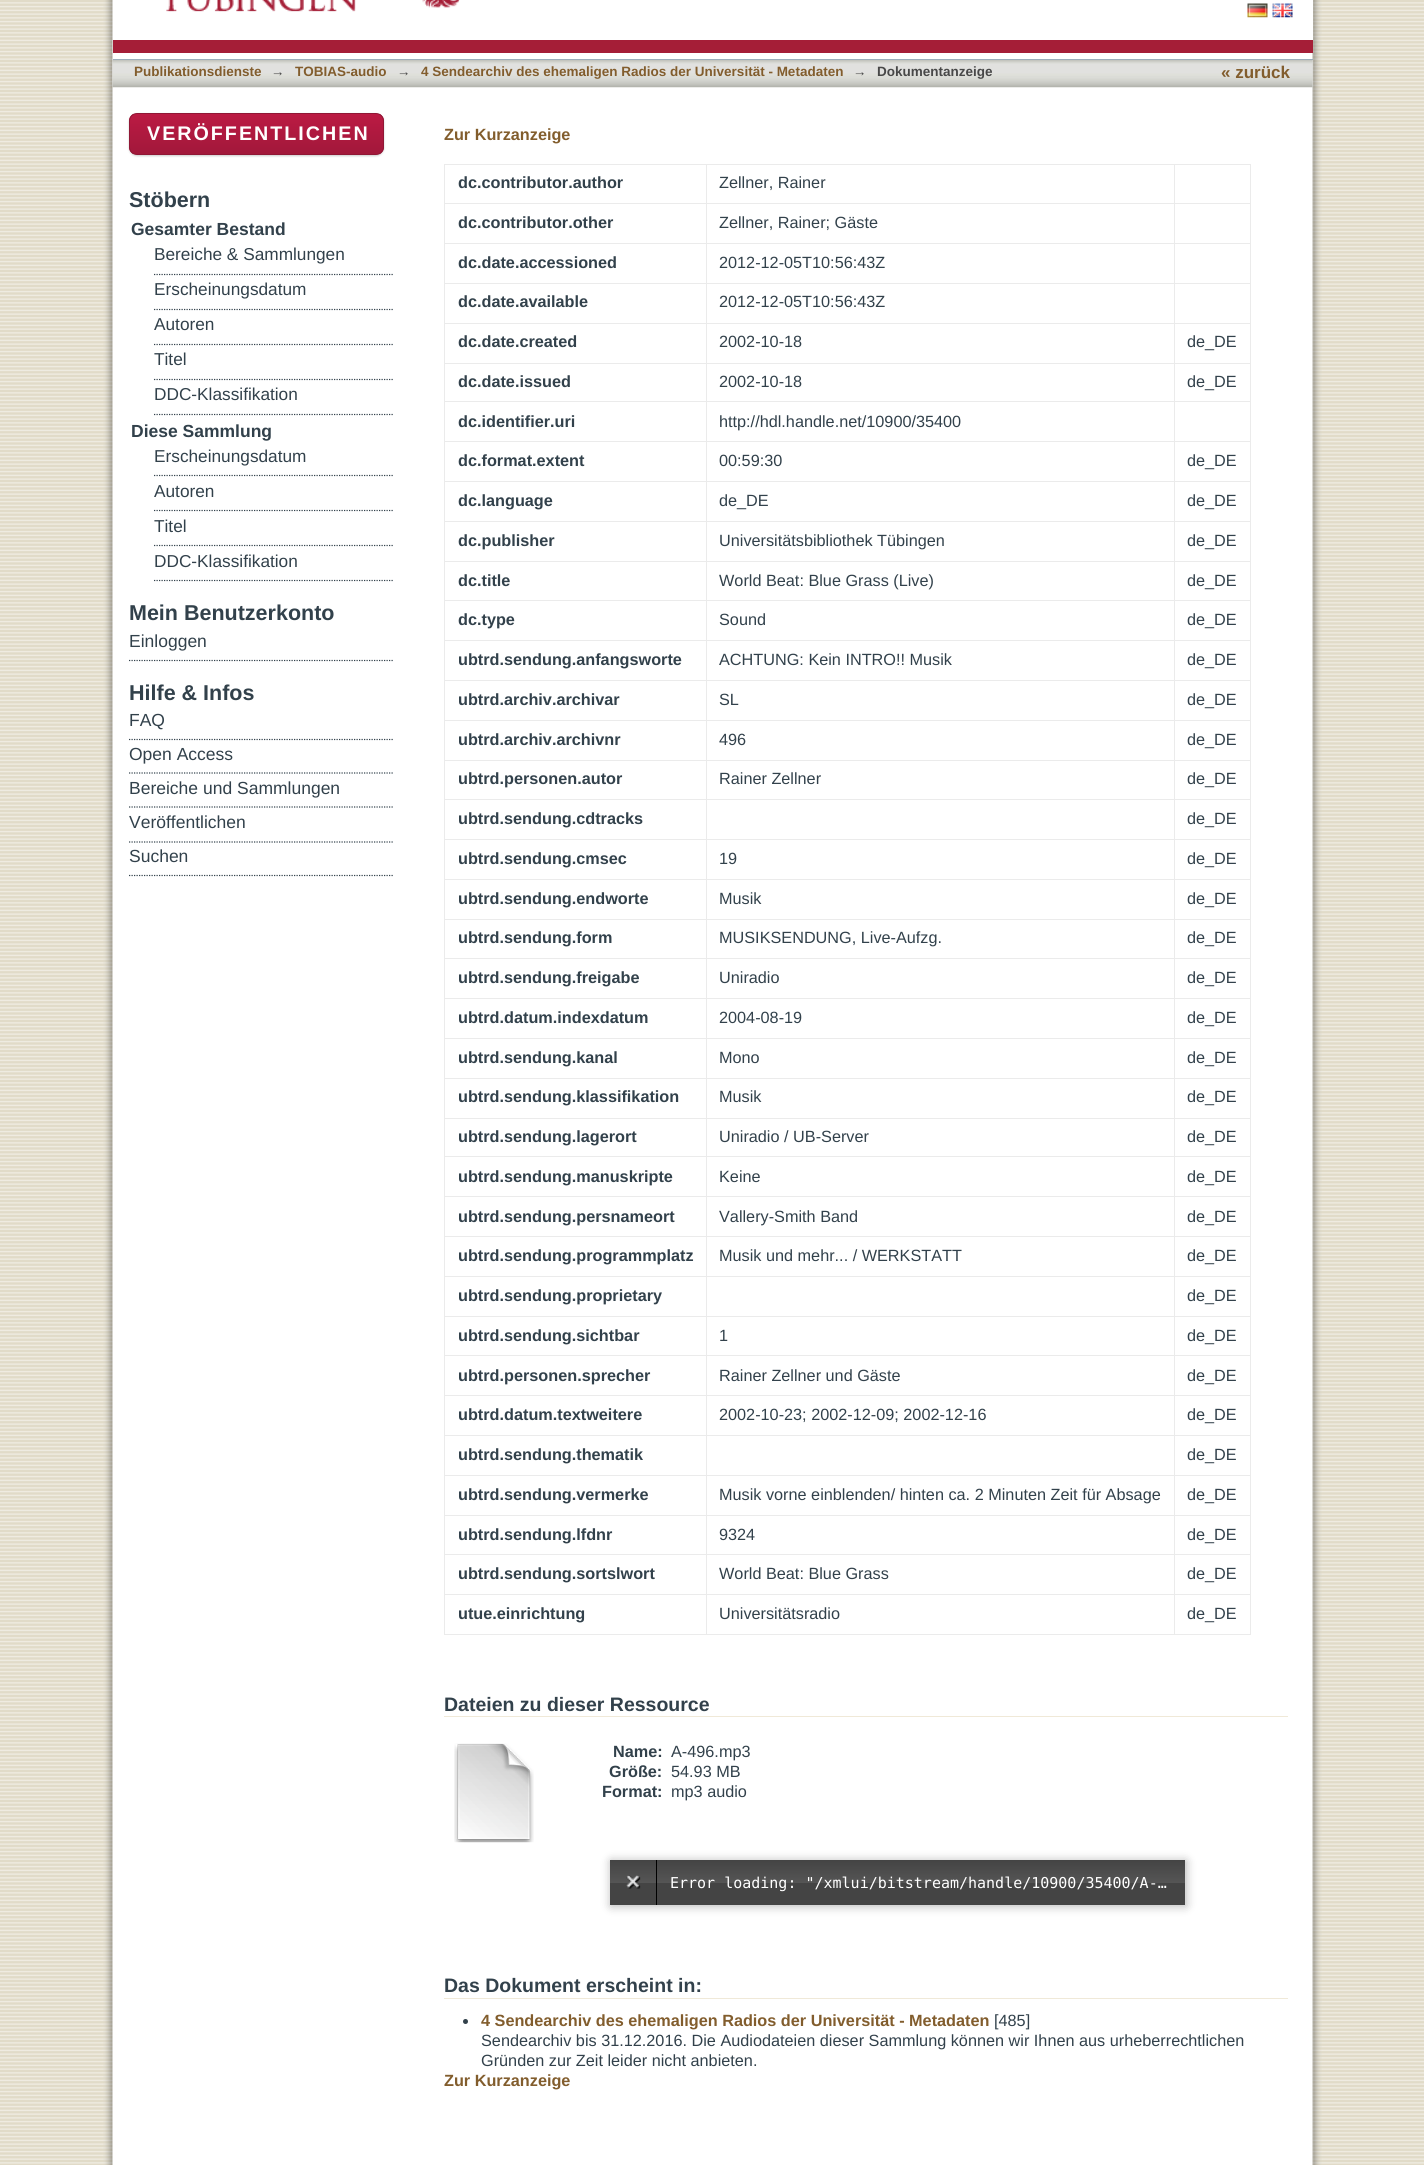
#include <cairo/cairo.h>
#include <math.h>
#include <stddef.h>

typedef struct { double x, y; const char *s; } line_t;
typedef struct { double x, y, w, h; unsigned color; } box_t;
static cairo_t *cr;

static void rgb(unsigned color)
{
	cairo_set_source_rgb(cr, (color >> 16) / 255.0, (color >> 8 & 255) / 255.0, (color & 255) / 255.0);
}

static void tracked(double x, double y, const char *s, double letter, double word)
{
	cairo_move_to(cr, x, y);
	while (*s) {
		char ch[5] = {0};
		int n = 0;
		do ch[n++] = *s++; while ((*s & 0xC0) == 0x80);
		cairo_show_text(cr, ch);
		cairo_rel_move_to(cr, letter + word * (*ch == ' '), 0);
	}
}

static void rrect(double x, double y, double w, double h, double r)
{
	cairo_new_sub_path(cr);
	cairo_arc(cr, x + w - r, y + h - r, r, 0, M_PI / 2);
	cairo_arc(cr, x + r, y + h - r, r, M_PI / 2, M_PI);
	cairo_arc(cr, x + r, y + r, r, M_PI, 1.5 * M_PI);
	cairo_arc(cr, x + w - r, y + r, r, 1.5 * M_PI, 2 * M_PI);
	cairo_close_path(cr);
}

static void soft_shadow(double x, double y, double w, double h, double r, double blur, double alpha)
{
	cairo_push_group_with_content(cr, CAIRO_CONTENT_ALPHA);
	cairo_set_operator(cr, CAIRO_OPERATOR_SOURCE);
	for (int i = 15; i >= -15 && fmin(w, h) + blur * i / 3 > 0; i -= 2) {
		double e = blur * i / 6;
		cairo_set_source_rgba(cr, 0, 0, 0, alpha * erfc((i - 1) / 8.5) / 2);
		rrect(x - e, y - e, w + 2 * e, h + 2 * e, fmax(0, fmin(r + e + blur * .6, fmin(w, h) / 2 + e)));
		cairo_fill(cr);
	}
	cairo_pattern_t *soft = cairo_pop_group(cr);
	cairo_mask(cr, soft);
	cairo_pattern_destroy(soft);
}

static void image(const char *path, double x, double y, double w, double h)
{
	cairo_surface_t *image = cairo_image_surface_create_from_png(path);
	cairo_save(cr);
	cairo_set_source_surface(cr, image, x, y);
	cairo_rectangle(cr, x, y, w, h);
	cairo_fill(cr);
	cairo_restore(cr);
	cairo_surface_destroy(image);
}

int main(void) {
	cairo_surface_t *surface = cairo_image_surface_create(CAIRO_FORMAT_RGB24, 1424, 2165);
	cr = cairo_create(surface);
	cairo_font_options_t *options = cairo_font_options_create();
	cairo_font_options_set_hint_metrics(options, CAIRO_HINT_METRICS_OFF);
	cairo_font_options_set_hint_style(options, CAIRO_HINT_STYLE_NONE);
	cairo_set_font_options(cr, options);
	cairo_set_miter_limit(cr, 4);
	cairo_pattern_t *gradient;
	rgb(0xffffff);
	cairo_paint(cr);
	image("img/1.png", 0, 0, 1424, 2165);
	image("img/2.png", 103, 0, 1219, 2165);
	rgb(0xffffff);
	cairo_rectangle(cr, 1312, 0, 1, 40);
	cairo_fill(cr);
	rgb(0xa51e37);
	cairo_rectangle(cr, 113, 40, 1200, 13);
	cairo_fill(cr);
	image("img/3.png", 166, 0, 294, 12);
	image("img/4.png", 112, 59, 1201, 29);
	rgb(0x9cacba);
	cairo_rectangle(cr, 113, 59, 1200, 1);
	cairo_fill(cr);
	image("img/5.png", 1247, 3, 21, 15);
	image("img/6.png", 1272, 3, 21, 15);
	rgb(0x000000);
	soft_shadow(129, 114, 255, 42, 8, 1, 0.2);
	cairo_save(cr);
	rrect(129, 113, 255, 42, 8);
	cairo_clip(cr);
	gradient = cairo_pattern_create_linear(256, 114, 256, 154);
	cairo_pattern_add_color_stop_rgba(gradient, 0, 0.733, 0.102, 0.263, 1);
	cairo_pattern_add_color_stop_rgba(gradient, 1, 0.635, 0.094, 0.231, 1);
	cairo_set_source(cr, gradient);
	cairo_pattern_destroy(gradient);
	cairo_rectangle(cr, 129, 114, 255, 40);
	cairo_fill(cr);
	cairo_restore(cr);
	rrect(129.5, 113.5, 254, 41, 7.5);
	rgb(0x901735);
	cairo_set_line_width(cr, 1);
	cairo_stroke(cr);
	cairo_new_path(cr);
	cairo_move_to(cr, 154, 274.5);
	cairo_line_to(cr, 394, 274.5);
	rgb(0x32414b);
	cairo_set_line_width(cr, 1.2);
	cairo_set_dash(cr, (double[]){1.25, 1.25}, 2, 0);
	cairo_stroke(cr);
	cairo_new_path(cr);
	cairo_move_to(cr, 154, 309.5);
	cairo_line_to(cr, 394, 309.5);
	cairo_stroke(cr);
	cairo_new_path(cr);
	cairo_move_to(cr, 154, 344.5);
	cairo_line_to(cr, 394, 344.5);
	cairo_stroke(cr);
	cairo_new_path(cr);
	cairo_move_to(cr, 154, 379.5);
	cairo_line_to(cr, 394, 379.5);
	cairo_stroke(cr);
	cairo_new_path(cr);
	cairo_move_to(cr, 154, 414.5);
	cairo_line_to(cr, 394, 414.5);
	cairo_stroke(cr);
	cairo_new_path(cr);
	cairo_move_to(cr, 154, 475.5);
	cairo_line_to(cr, 394, 475.5);
	cairo_stroke(cr);
	cairo_new_path(cr);
	cairo_move_to(cr, 154, 510.5);
	cairo_line_to(cr, 394, 510.5);
	cairo_stroke(cr);
	cairo_new_path(cr);
	cairo_move_to(cr, 154, 545.5);
	cairo_line_to(cr, 394, 545.5);
	cairo_stroke(cr);
	cairo_new_path(cr);
	cairo_move_to(cr, 154, 580.5);
	cairo_line_to(cr, 394, 580.5);
	cairo_stroke(cr);
	cairo_new_path(cr);
	cairo_move_to(cr, 129, 660.5);
	cairo_line_to(cr, 394, 660.5);
	cairo_stroke(cr);
	cairo_new_path(cr);
	cairo_move_to(cr, 129, 739.5);
	cairo_line_to(cr, 394, 739.5);
	cairo_stroke(cr);
	cairo_new_path(cr);
	cairo_move_to(cr, 129, 773);
	cairo_line_to(cr, 394, 773);
	cairo_stroke(cr);
	cairo_new_path(cr);
	cairo_move_to(cr, 129, 807);
	cairo_line_to(cr, 394, 807);
	cairo_stroke(cr);
	cairo_new_path(cr);
	cairo_move_to(cr, 129, 842);
	cairo_line_to(cr, 394, 842);
	cairo_stroke(cr);
	cairo_new_path(cr);
	cairo_move_to(cr, 129, 875.5);
	cairo_line_to(cr, 394, 875.5);
	cairo_stroke(cr);
	{
		static const box_t items[] = {
			{444, 164, 807, 1, 0xebebeb},
			{444, 203, 807, 1, 0xebebeb},
			{444, 243, 807, 1, 0xebebeb},
			{444, 283, 807, 1, 0xebebeb},
			{444, 323, 807, 1, 0xebebeb},
			{444, 363, 807, 1, 0xebebeb},
			{444, 401, 807, 1, 0xebebeb},
			{444, 441, 807, 1, 0xebebeb},
			{444, 481, 807, 1, 0xebebeb},
			{444, 521, 807, 1, 0xebebeb},
			{444, 561, 807, 1, 0xebebeb},
			{444, 600, 807, 1, 0xebebeb},
			{444, 640, 807, 1, 0xebebeb},
			{444, 680, 807, 1, 0xebebeb},
			{444, 720, 807, 1, 0xebebeb},
			{444, 760, 807, 1, 0xebebeb},
			{444, 799, 807, 1, 0xebebeb},
			{444, 839, 807, 1, 0xebebeb},
			{444, 879, 807, 1, 0xebebeb},
			{444, 919, 807, 1, 0xebebeb},
			{444, 958, 807, 1, 0xebebeb},
			{444, 998, 807, 1, 0xebebeb},
			{444, 1038, 807, 1, 0xebebeb},
			{444, 1078, 807, 1, 0xebebeb},
			{444, 1118, 807, 1, 0xebebeb},
			{444, 1156, 807, 1, 0xebebeb},
			{444, 1196, 807, 1, 0xebebeb},
			{444, 1236, 807, 1, 0xebebeb},
			{444, 1276, 807, 1, 0xebebeb},
			{444, 1316, 807, 1, 0xebebeb},
			{444, 1355, 807, 1, 0xebebeb},
			{444, 1395, 807, 1, 0xebebeb},
			{444, 1435, 807, 1, 0xebebeb},
			{444, 1475, 807, 1, 0xebebeb},
			{444, 1515, 807, 1, 0xebebeb},
			{444, 1554, 807, 1, 0xebebeb},
			{444, 1594, 807, 1, 0xebebeb},
			{1250, 1594, 1, 41, 0xebebeb},
			{1250, 1554, 1, 41, 0xebebeb},
			{1250, 1515, 1, 40, 0xebebeb},
			{1250, 1475, 1, 41, 0xebebeb},
			{1250, 1435, 1, 41, 0xebebeb},
			{1250, 1395, 1, 41, 0xebebeb},
			{1250, 1355, 1, 41, 0xebebeb},
			{1250, 1316, 1, 40, 0xebebeb},
			{1250, 1276, 1, 42, 0xebebeb},
			{1250, 1236, 1, 42, 0xebebeb},
			{1250, 1196, 1, 42, 0xebebeb},
			{1250, 1156, 1, 42, 0xebebeb},
			{1250, 1118, 1, 40, 0xebebeb},
			{1250, 1078, 1, 41, 0xebebeb},
			{1250, 1038, 1, 41, 0xebebeb},
			{1250, 998, 1, 41, 0xebebeb},
			{1250, 958, 1, 41, 0xebebeb},
			{1250, 919, 1, 40, 0xebebeb},
			{1250, 879, 1, 41, 0xebebeb},
			{1250, 839, 1, 41, 0xebebeb},
			{1250, 799, 1, 41, 0xebebeb},
			{1250, 760, 1, 40, 0xebebeb},
			{1250, 720, 1, 41, 0xebebeb},
			{1250, 680, 1, 41, 0xebebeb},
			{1250, 640, 1, 41, 0xebebeb},
			{1250, 600, 1, 41, 0xebebeb},
			{1250, 561, 1, 40, 0xebebeb},
			{1250, 521, 1, 42, 0xebebeb},
			{1250, 481, 1, 42, 0xebebeb},
			{1250, 441, 1, 42, 0xebebeb},
			{1250, 401, 1, 42, 0xebebeb},
			{1250, 363, 1, 40, 0xebebeb},
			{1250, 323, 1, 41, 0xebebeb},
			{1250, 283, 1, 41, 0xebebeb},
			{1250, 243, 1, 41, 0xebebeb},
			{1250, 203, 1, 41, 0xebebeb},
			{1250, 164, 1, 40, 0xebebeb},
			{444, 1634, 807, 1, 0xebebeb},
			{444, 1594, 1, 41, 0xebebeb},
			{444, 1554, 1, 41, 0xebebeb},
			{444, 1515, 1, 40, 0xebebeb},
			{444, 1475, 1, 41, 0xebebeb},
			{444, 1435, 1, 41, 0xebebeb},
			{444, 1395, 1, 41, 0xebebeb},
			{444, 1355, 1, 41, 0xebebeb},
			{444, 1316, 1, 40, 0xebebeb},
			{444, 1276, 1, 42, 0xebebeb},
			{444, 1236, 1, 42, 0xebebeb},
			{444, 1196, 1, 42, 0xebebeb},
			{444, 1156, 1, 42, 0xebebeb},
			{444, 1118, 1, 40, 0xebebeb},
			{444, 1078, 1, 41, 0xebebeb},
			{444, 1038, 1, 41, 0xebebeb},
			{444, 998, 1, 41, 0xebebeb},
			{444, 958, 1, 41, 0xebebeb},
			{444, 919, 1, 40, 0xebebeb},
			{444, 879, 1, 41, 0xebebeb},
			{444, 839, 1, 41, 0xebebeb},
			{444, 799, 1, 41, 0xebebeb},
			{444, 760, 1, 40, 0xebebeb},
			{444, 720, 1, 41, 0xebebeb},
			{444, 680, 1, 41, 0xebebeb},
			{444, 640, 1, 41, 0xebebeb},
			{444, 600, 1, 41, 0xebebeb},
			{444, 561, 1, 40, 0xebebeb},
			{444, 521, 1, 42, 0xebebeb},
			{444, 481, 1, 42, 0xebebeb},
			{444, 441, 1, 42, 0xebebeb},
			{444, 401, 1, 42, 0xebebeb},
			{444, 363, 1, 40, 0xebebeb},
			{444, 323, 1, 41, 0xebebeb},
			{444, 283, 1, 41, 0xebebeb},
			{444, 243, 1, 41, 0xebebeb},
			{444, 203, 1, 41, 0xebebeb},
			{444, 164, 1, 40, 0xebebeb},
			{706, 164, 1, 1471, 0xebebeb},
			{1174, 164, 1, 1471, 0xebebeb},
			{444, 1716, 844, 1, 0xf0e9d8},
		};
		for (size_t i = 0; i < sizeof items / sizeof *items; i++) {
			rgb(items[i].color);
			cairo_rectangle(cr, items[i].x, items[i].y, items[i].w, items[i].h);
			cairo_fill(cr);
		}
	}
	image("img/7.png", 454, 1743, 80, 100);
	rgb(0x000000);
	soft_shadow(611, 1861, 575, 45, 0, 5, 0.3);
	gradient = cairo_pattern_create_linear(610, 1860, 610, 1905);
	cairo_pattern_add_color_stop_rgba(gradient, 0, 0.267, 0.267, 0.267, 1);
	cairo_pattern_add_color_stop_rgba(gradient, 0.5, 0.333, 0.333, 0.333, 1);
	cairo_pattern_add_color_stop_rgba(gradient, 0.51, 0.267, 0.267, 0.267, 1);
	cairo_pattern_add_color_stop_rgba(gradient, 1, 0.267, 0.267, 0.267, 1);
	cairo_set_source(cr, gradient);
	cairo_pattern_destroy(gradient);
	cairo_rectangle(cr, 610, 1860, 575, 45);
	cairo_fill(cr);
	rgb(0x000000);
	cairo_rectangle(cr, 656, 1860, 1, 45);
	cairo_fill(cr);
	image("img/8.png", 626, 1875, 15, 14);
	rgb(0xf0e9d8);
	cairo_rectangle(cr, 444, 1998, 844, 1);
	cairo_fill(cr);
	rgb(0x32414b);
	cairo_arc(cr, 465.5, 2021.5, 2.5, 0, 2 * M_PI);
	cairo_fill(cr);
	cairo_select_font_face(cr, "Liberation Sans", CAIRO_FONT_SLANT_NORMAL, CAIRO_FONT_WEIGHT_BOLD);
	cairo_set_font_size(cr, 13.5);
	rgb(0x825d2d);
	cairo_move_to(cr, 134, 76);
	cairo_show_text(cr, "Publikationsdienste");
	rgb(0x484848);
	cairo_move_to(cr, 271, 76);
	cairo_show_text(cr, "→");
	rgb(0x825d2d);
	cairo_move_to(cr, 295, 76);
	cairo_show_text(cr, "TOBIAS-audio");
	rgb(0x484848);
	cairo_move_to(cr, 397, 76);
	cairo_show_text(cr, "→");
	rgb(0x825d2d);
	cairo_move_to(cr, 421, 76);
	cairo_show_text(cr, "4 Sendearchiv des ehemaligen Radios der Universität - Metadaten");
	rgb(0x484848);
	cairo_move_to(cr, 853, 76);
	cairo_show_text(cr, "→");
	cairo_move_to(cr, 877, 76);
	cairo_show_text(cr, "Dokumentanzeige");
	cairo_set_font_size(cr, 17);
	rgb(0x825d2d);
	cairo_move_to(cr, 1221, 78);
	cairo_show_text(cr, "« zurück");
	cairo_set_font_size(cr, 19.7);
	rgb(0xffffff);
	tracked(147, 140, "VERÖFFENTLICHEN", 2, 0);
	cairo_set_font_size(cr, 21.5);
	rgb(0x32414b);
	cairo_move_to(cr, 129, 207);
	cairo_show_text(cr, "Stöbern");
	cairo_set_font_size(cr, 17.5);
	cairo_move_to(cr, 131, 235);
	cairo_show_text(cr, "Gesamter Bestand");
	cairo_select_font_face(cr, "Liberation Sans", CAIRO_FONT_SLANT_NORMAL, CAIRO_FONT_WEIGHT_NORMAL);
	cairo_set_font_size(cr, 17.25);
	{
		static const line_t items[] = {
			{154, 260, "Bereiche & Sammlungen"},
			{154, 295, "Erscheinungsdatum"},
			{154, 330, "Autoren"},
			{154, 365, "Titel"},
			{154, 400, "DDC-Klassifikation"},
		};
		for (size_t i = 0; i < sizeof items / sizeof *items; i++) {
			cairo_move_to(cr, items[i].x, items[i].y);
			cairo_show_text(cr, items[i].s);
		}
	}
	cairo_select_font_face(cr, "Liberation Sans", CAIRO_FONT_SLANT_NORMAL, CAIRO_FONT_WEIGHT_BOLD);
	cairo_set_font_size(cr, 17.5);
	cairo_move_to(cr, 131, 437);
	cairo_show_text(cr, "Diese Sammlung");
	cairo_select_font_face(cr, "Liberation Sans", CAIRO_FONT_SLANT_NORMAL, CAIRO_FONT_WEIGHT_NORMAL);
	cairo_set_font_size(cr, 17.25);
	{
		static const line_t items[] = {
			{154, 462, "Erscheinungsdatum"},
			{154, 497, "Autoren"},
			{154, 532, "Titel"},
			{154, 567, "DDC-Klassifikation"},
		};
		for (size_t i = 0; i < sizeof items / sizeof *items; i++) {
			cairo_move_to(cr, items[i].x, items[i].y);
			cairo_show_text(cr, items[i].s);
		}
	}
	cairo_select_font_face(cr, "Liberation Sans", CAIRO_FONT_SLANT_NORMAL, CAIRO_FONT_WEIGHT_BOLD);
	cairo_set_font_size(cr, 21.5);
	cairo_move_to(cr, 129, 620);
	cairo_show_text(cr, "Mein Benutzerkonto");
	cairo_select_font_face(cr, "Liberation Sans", CAIRO_FONT_SLANT_NORMAL, CAIRO_FONT_WEIGHT_NORMAL);
	cairo_set_font_size(cr, 17.5);
	cairo_move_to(cr, 129, 647);
	cairo_show_text(cr, "Einloggen");
	cairo_select_font_face(cr, "Liberation Sans", CAIRO_FONT_SLANT_NORMAL, CAIRO_FONT_WEIGHT_BOLD);
	cairo_set_font_size(cr, 21.5);
	cairo_move_to(cr, 129, 700);
	cairo_show_text(cr, "Hilfe & Infos");
	cairo_select_font_face(cr, "Liberation Sans", CAIRO_FONT_SLANT_NORMAL, CAIRO_FONT_WEIGHT_NORMAL);
	cairo_set_font_size(cr, 17.5);
	{
		static const line_t items[] = {
			{129, 726, "FAQ"},
			{129, 760, "Open Access"},
			{129, 794, "Bereiche und Sammlungen"},
			{129, 828, "Veröffentlichen"},
			{129, 862, "Suchen"},
		};
		for (size_t i = 0; i < sizeof items / sizeof *items; i++) {
			cairo_move_to(cr, items[i].x, items[i].y);
			cairo_show_text(cr, items[i].s);
		}
	}
	cairo_select_font_face(cr, "Liberation Sans", CAIRO_FONT_SLANT_NORMAL, CAIRO_FONT_WEIGHT_BOLD);
	cairo_set_font_size(cr, 16.25);
	rgb(0x825d2d);
	cairo_move_to(cr, 444, 140);
	cairo_show_text(cr, "Zur Kurzanzeige");
	rgb(0x32414b);
	cairo_move_to(cr, 458, 188);
	cairo_show_text(cr, "dc.contributor.author");
	cairo_select_font_face(cr, "Liberation Sans", CAIRO_FONT_SLANT_NORMAL, CAIRO_FONT_WEIGHT_NORMAL);
	cairo_move_to(cr, 719, 188);
	cairo_show_text(cr, "Zellner, Rainer");
	cairo_select_font_face(cr, "Liberation Sans", CAIRO_FONT_SLANT_NORMAL, CAIRO_FONT_WEIGHT_BOLD);
	cairo_move_to(cr, 458, 228);
	cairo_show_text(cr, "dc.contributor.other");
	cairo_select_font_face(cr, "Liberation Sans", CAIRO_FONT_SLANT_NORMAL, CAIRO_FONT_WEIGHT_NORMAL);
	cairo_move_to(cr, 719, 228);
	cairo_show_text(cr, "Zellner, Rainer; Gäste");
	cairo_select_font_face(cr, "Liberation Sans", CAIRO_FONT_SLANT_NORMAL, CAIRO_FONT_WEIGHT_BOLD);
	cairo_move_to(cr, 458, 268);
	cairo_show_text(cr, "dc.date.accessioned");
	cairo_select_font_face(cr, "Liberation Sans", CAIRO_FONT_SLANT_NORMAL, CAIRO_FONT_WEIGHT_NORMAL);
	cairo_move_to(cr, 719, 268);
	cairo_show_text(cr, "2012-12-05T10:56:43Z");
	cairo_select_font_face(cr, "Liberation Sans", CAIRO_FONT_SLANT_NORMAL, CAIRO_FONT_WEIGHT_BOLD);
	cairo_move_to(cr, 458, 307);
	cairo_show_text(cr, "dc.date.available");
	cairo_select_font_face(cr, "Liberation Sans", CAIRO_FONT_SLANT_NORMAL, CAIRO_FONT_WEIGHT_NORMAL);
	cairo_move_to(cr, 719, 307);
	cairo_show_text(cr, "2012-12-05T10:56:43Z");
	cairo_select_font_face(cr, "Liberation Sans", CAIRO_FONT_SLANT_NORMAL, CAIRO_FONT_WEIGHT_BOLD);
	cairo_move_to(cr, 458, 347);
	cairo_show_text(cr, "dc.date.created");
	cairo_select_font_face(cr, "Liberation Sans", CAIRO_FONT_SLANT_NORMAL, CAIRO_FONT_WEIGHT_NORMAL);
	cairo_move_to(cr, 719, 347);
	cairo_show_text(cr, "2002-10-18");
	cairo_move_to(cr, 1187, 347);
	cairo_show_text(cr, "de_DE");
	cairo_select_font_face(cr, "Liberation Sans", CAIRO_FONT_SLANT_NORMAL, CAIRO_FONT_WEIGHT_BOLD);
	cairo_move_to(cr, 458, 387);
	cairo_show_text(cr, "dc.date.issued");
	cairo_select_font_face(cr, "Liberation Sans", CAIRO_FONT_SLANT_NORMAL, CAIRO_FONT_WEIGHT_NORMAL);
	cairo_move_to(cr, 719, 387);
	cairo_show_text(cr, "2002-10-18");
	cairo_move_to(cr, 1187, 387);
	cairo_show_text(cr, "de_DE");
	cairo_select_font_face(cr, "Liberation Sans", CAIRO_FONT_SLANT_NORMAL, CAIRO_FONT_WEIGHT_BOLD);
	cairo_move_to(cr, 458, 427);
	cairo_show_text(cr, "dc.identifier.uri");
	cairo_select_font_face(cr, "Liberation Sans", CAIRO_FONT_SLANT_NORMAL, CAIRO_FONT_WEIGHT_NORMAL);
	cairo_move_to(cr, 719, 427);
	cairo_show_text(cr, "http://hdl.handle.net/10900/35400");
	cairo_select_font_face(cr, "Liberation Sans", CAIRO_FONT_SLANT_NORMAL, CAIRO_FONT_WEIGHT_BOLD);
	cairo_move_to(cr, 458, 466);
	cairo_show_text(cr, "dc.format.extent");
	cairo_select_font_face(cr, "Liberation Sans", CAIRO_FONT_SLANT_NORMAL, CAIRO_FONT_WEIGHT_NORMAL);
	cairo_move_to(cr, 719, 466);
	cairo_show_text(cr, "00:59:30");
	cairo_move_to(cr, 1187, 466);
	cairo_show_text(cr, "de_DE");
	cairo_select_font_face(cr, "Liberation Sans", CAIRO_FONT_SLANT_NORMAL, CAIRO_FONT_WEIGHT_BOLD);
	cairo_move_to(cr, 458, 506);
	cairo_show_text(cr, "dc.language");
	cairo_select_font_face(cr, "Liberation Sans", CAIRO_FONT_SLANT_NORMAL, CAIRO_FONT_WEIGHT_NORMAL);
	cairo_move_to(cr, 719, 506);
	cairo_show_text(cr, "de_DE");
	cairo_move_to(cr, 1187, 506);
	cairo_show_text(cr, "de_DE");
	cairo_select_font_face(cr, "Liberation Sans", CAIRO_FONT_SLANT_NORMAL, CAIRO_FONT_WEIGHT_BOLD);
	cairo_move_to(cr, 458, 546);
	cairo_show_text(cr, "dc.publisher");
	cairo_select_font_face(cr, "Liberation Sans", CAIRO_FONT_SLANT_NORMAL, CAIRO_FONT_WEIGHT_NORMAL);
	cairo_move_to(cr, 719, 546);
	cairo_show_text(cr, "Universitätsbibliothek Tübingen");
	cairo_move_to(cr, 1187, 546);
	cairo_show_text(cr, "de_DE");
	cairo_select_font_face(cr, "Liberation Sans", CAIRO_FONT_SLANT_NORMAL, CAIRO_FONT_WEIGHT_BOLD);
	cairo_move_to(cr, 458, 586);
	cairo_show_text(cr, "dc.title");
	cairo_select_font_face(cr, "Liberation Sans", CAIRO_FONT_SLANT_NORMAL, CAIRO_FONT_WEIGHT_NORMAL);
	cairo_move_to(cr, 719, 586);
	cairo_show_text(cr, "World Beat: Blue Grass (Live)");
	cairo_move_to(cr, 1187, 586);
	cairo_show_text(cr, "de_DE");
	cairo_select_font_face(cr, "Liberation Sans", CAIRO_FONT_SLANT_NORMAL, CAIRO_FONT_WEIGHT_BOLD);
	cairo_move_to(cr, 458, 625);
	cairo_show_text(cr, "dc.type");
	cairo_select_font_face(cr, "Liberation Sans", CAIRO_FONT_SLANT_NORMAL, CAIRO_FONT_WEIGHT_NORMAL);
	cairo_move_to(cr, 719, 625);
	cairo_show_text(cr, "Sound");
	cairo_move_to(cr, 1187, 625);
	cairo_show_text(cr, "de_DE");
	cairo_select_font_face(cr, "Liberation Sans", CAIRO_FONT_SLANT_NORMAL, CAIRO_FONT_WEIGHT_BOLD);
	cairo_move_to(cr, 458, 665);
	cairo_show_text(cr, "ubtrd.sendung.anfangsworte");
	cairo_select_font_face(cr, "Liberation Sans", CAIRO_FONT_SLANT_NORMAL, CAIRO_FONT_WEIGHT_NORMAL);
	cairo_move_to(cr, 719, 665);
	cairo_show_text(cr, "ACHTUNG: Kein INTRO!! Musik");
	cairo_move_to(cr, 1187, 665);
	cairo_show_text(cr, "de_DE");
	cairo_select_font_face(cr, "Liberation Sans", CAIRO_FONT_SLANT_NORMAL, CAIRO_FONT_WEIGHT_BOLD);
	cairo_move_to(cr, 458, 705);
	cairo_show_text(cr, "ubtrd.archiv.archivar");
	cairo_select_font_face(cr, "Liberation Sans", CAIRO_FONT_SLANT_NORMAL, CAIRO_FONT_WEIGHT_NORMAL);
	cairo_move_to(cr, 719, 705);
	cairo_show_text(cr, "SL");
	cairo_move_to(cr, 1187, 705);
	cairo_show_text(cr, "de_DE");
	cairo_select_font_face(cr, "Liberation Sans", CAIRO_FONT_SLANT_NORMAL, CAIRO_FONT_WEIGHT_BOLD);
	cairo_move_to(cr, 458, 745);
	cairo_show_text(cr, "ubtrd.archiv.archivnr");
	cairo_select_font_face(cr, "Liberation Sans", CAIRO_FONT_SLANT_NORMAL, CAIRO_FONT_WEIGHT_NORMAL);
	cairo_move_to(cr, 719, 745);
	cairo_show_text(cr, "496");
	cairo_move_to(cr, 1187, 745);
	cairo_show_text(cr, "de_DE");
	cairo_select_font_face(cr, "Liberation Sans", CAIRO_FONT_SLANT_NORMAL, CAIRO_FONT_WEIGHT_BOLD);
	cairo_move_to(cr, 458, 784);
	cairo_show_text(cr, "ubtrd.personen.autor");
	cairo_select_font_face(cr, "Liberation Sans", CAIRO_FONT_SLANT_NORMAL, CAIRO_FONT_WEIGHT_NORMAL);
	cairo_move_to(cr, 719, 784);
	cairo_show_text(cr, "Rainer Zellner");
	cairo_move_to(cr, 1187, 784);
	cairo_show_text(cr, "de_DE");
	cairo_select_font_face(cr, "Liberation Sans", CAIRO_FONT_SLANT_NORMAL, CAIRO_FONT_WEIGHT_BOLD);
	cairo_move_to(cr, 458, 824);
	cairo_show_text(cr, "ubtrd.sendung.cdtracks");
	cairo_select_font_face(cr, "Liberation Sans", CAIRO_FONT_SLANT_NORMAL, CAIRO_FONT_WEIGHT_NORMAL);
	cairo_move_to(cr, 1187, 824);
	cairo_show_text(cr, "de_DE");
	cairo_select_font_face(cr, "Liberation Sans", CAIRO_FONT_SLANT_NORMAL, CAIRO_FONT_WEIGHT_BOLD);
	cairo_move_to(cr, 458, 864);
	cairo_show_text(cr, "ubtrd.sendung.cmsec");
	cairo_select_font_face(cr, "Liberation Sans", CAIRO_FONT_SLANT_NORMAL, CAIRO_FONT_WEIGHT_NORMAL);
	cairo_move_to(cr, 719, 864);
	cairo_show_text(cr, "19");
	cairo_move_to(cr, 1187, 864);
	cairo_show_text(cr, "de_DE");
	cairo_select_font_face(cr, "Liberation Sans", CAIRO_FONT_SLANT_NORMAL, CAIRO_FONT_WEIGHT_BOLD);
	cairo_move_to(cr, 458, 904);
	cairo_show_text(cr, "ubtrd.sendung.endworte");
	cairo_select_font_face(cr, "Liberation Sans", CAIRO_FONT_SLANT_NORMAL, CAIRO_FONT_WEIGHT_NORMAL);
	cairo_move_to(cr, 719, 904);
	cairo_show_text(cr, "Musik");
	cairo_move_to(cr, 1187, 904);
	cairo_show_text(cr, "de_DE");
	cairo_select_font_face(cr, "Liberation Sans", CAIRO_FONT_SLANT_NORMAL, CAIRO_FONT_WEIGHT_BOLD);
	cairo_move_to(cr, 458, 943);
	cairo_show_text(cr, "ubtrd.sendung.form");
	cairo_select_font_face(cr, "Liberation Sans", CAIRO_FONT_SLANT_NORMAL, CAIRO_FONT_WEIGHT_NORMAL);
	cairo_move_to(cr, 719, 943);
	cairo_show_text(cr, "MUSIKSENDUNG, Live-Aufzg.");
	cairo_move_to(cr, 1187, 943);
	cairo_show_text(cr, "de_DE");
	cairo_select_font_face(cr, "Liberation Sans", CAIRO_FONT_SLANT_NORMAL, CAIRO_FONT_WEIGHT_BOLD);
	cairo_move_to(cr, 458, 983);
	cairo_show_text(cr, "ubtrd.sendung.freigabe");
	cairo_select_font_face(cr, "Liberation Sans", CAIRO_FONT_SLANT_NORMAL, CAIRO_FONT_WEIGHT_NORMAL);
	cairo_move_to(cr, 719, 983);
	cairo_show_text(cr, "Uniradio");
	cairo_move_to(cr, 1187, 983);
	cairo_show_text(cr, "de_DE");
	cairo_select_font_face(cr, "Liberation Sans", CAIRO_FONT_SLANT_NORMAL, CAIRO_FONT_WEIGHT_BOLD);
	cairo_move_to(cr, 458, 1023);
	cairo_show_text(cr, "ubtrd.datum.indexdatum");
	cairo_select_font_face(cr, "Liberation Sans", CAIRO_FONT_SLANT_NORMAL, CAIRO_FONT_WEIGHT_NORMAL);
	cairo_move_to(cr, 719, 1023);
	cairo_show_text(cr, "2004-08-19");
	cairo_move_to(cr, 1187, 1023);
	cairo_show_text(cr, "de_DE");
	cairo_select_font_face(cr, "Liberation Sans", CAIRO_FONT_SLANT_NORMAL, CAIRO_FONT_WEIGHT_BOLD);
	cairo_move_to(cr, 458, 1063);
	cairo_show_text(cr, "ubtrd.sendung.kanal");
	cairo_select_font_face(cr, "Liberation Sans", CAIRO_FONT_SLANT_NORMAL, CAIRO_FONT_WEIGHT_NORMAL);
	cairo_move_to(cr, 719, 1063);
	cairo_show_text(cr, "Mono");
	cairo_move_to(cr, 1187, 1063);
	cairo_show_text(cr, "de_DE");
	cairo_select_font_face(cr, "Liberation Sans", CAIRO_FONT_SLANT_NORMAL, CAIRO_FONT_WEIGHT_BOLD);
	cairo_move_to(cr, 458, 1102);
	cairo_show_text(cr, "ubtrd.sendung.klassifikation");
	cairo_select_font_face(cr, "Liberation Sans", CAIRO_FONT_SLANT_NORMAL, CAIRO_FONT_WEIGHT_NORMAL);
	cairo_move_to(cr, 719, 1102);
	cairo_show_text(cr, "Musik");
	cairo_move_to(cr, 1187, 1102);
	cairo_show_text(cr, "de_DE");
	cairo_select_font_face(cr, "Liberation Sans", CAIRO_FONT_SLANT_NORMAL, CAIRO_FONT_WEIGHT_BOLD);
	cairo_move_to(cr, 458, 1142);
	cairo_show_text(cr, "ubtrd.sendung.lagerort");
	cairo_select_font_face(cr, "Liberation Sans", CAIRO_FONT_SLANT_NORMAL, CAIRO_FONT_WEIGHT_NORMAL);
	cairo_move_to(cr, 719, 1142);
	cairo_show_text(cr, "Uniradio / UB-Server");
	cairo_move_to(cr, 1187, 1142);
	cairo_show_text(cr, "de_DE");
	cairo_select_font_face(cr, "Liberation Sans", CAIRO_FONT_SLANT_NORMAL, CAIRO_FONT_WEIGHT_BOLD);
	cairo_move_to(cr, 458, 1182);
	cairo_show_text(cr, "ubtrd.sendung.manuskripte");
	cairo_select_font_face(cr, "Liberation Sans", CAIRO_FONT_SLANT_NORMAL, CAIRO_FONT_WEIGHT_NORMAL);
	cairo_move_to(cr, 719, 1182);
	cairo_show_text(cr, "Keine");
	cairo_move_to(cr, 1187, 1182);
	cairo_show_text(cr, "de_DE");
	cairo_select_font_face(cr, "Liberation Sans", CAIRO_FONT_SLANT_NORMAL, CAIRO_FONT_WEIGHT_BOLD);
	cairo_move_to(cr, 458, 1222);
	cairo_show_text(cr, "ubtrd.sendung.persnameort");
	cairo_select_font_face(cr, "Liberation Sans", CAIRO_FONT_SLANT_NORMAL, CAIRO_FONT_WEIGHT_NORMAL);
	cairo_move_to(cr, 719, 1222);
	cairo_show_text(cr, "Vallery-Smith Band");
	cairo_move_to(cr, 1187, 1222);
	cairo_show_text(cr, "de_DE");
	cairo_select_font_face(cr, "Liberation Sans", CAIRO_FONT_SLANT_NORMAL, CAIRO_FONT_WEIGHT_BOLD);
	cairo_move_to(cr, 458, 1261);
	cairo_show_text(cr, "ubtrd.sendung.programmplatz");
	cairo_select_font_face(cr, "Liberation Sans", CAIRO_FONT_SLANT_NORMAL, CAIRO_FONT_WEIGHT_NORMAL);
	cairo_move_to(cr, 719, 1261);
	cairo_show_text(cr, "Musik und mehr... / WERKSTATT");
	cairo_move_to(cr, 1187, 1261);
	cairo_show_text(cr, "de_DE");
	cairo_select_font_face(cr, "Liberation Sans", CAIRO_FONT_SLANT_NORMAL, CAIRO_FONT_WEIGHT_BOLD);
	cairo_move_to(cr, 458, 1301);
	cairo_show_text(cr, "ubtrd.sendung.proprietary");
	cairo_select_font_face(cr, "Liberation Sans", CAIRO_FONT_SLANT_NORMAL, CAIRO_FONT_WEIGHT_NORMAL);
	cairo_move_to(cr, 1187, 1301);
	cairo_show_text(cr, "de_DE");
	cairo_select_font_face(cr, "Liberation Sans", CAIRO_FONT_SLANT_NORMAL, CAIRO_FONT_WEIGHT_BOLD);
	cairo_move_to(cr, 458, 1341);
	cairo_show_text(cr, "ubtrd.sendung.sichtbar");
	cairo_select_font_face(cr, "Liberation Sans", CAIRO_FONT_SLANT_NORMAL, CAIRO_FONT_WEIGHT_NORMAL);
	cairo_move_to(cr, 719, 1341);
	cairo_show_text(cr, "1");
	cairo_move_to(cr, 1187, 1341);
	cairo_show_text(cr, "de_DE");
	cairo_select_font_face(cr, "Liberation Sans", CAIRO_FONT_SLANT_NORMAL, CAIRO_FONT_WEIGHT_BOLD);
	cairo_move_to(cr, 458, 1381);
	cairo_show_text(cr, "ubtrd.personen.sprecher");
	cairo_select_font_face(cr, "Liberation Sans", CAIRO_FONT_SLANT_NORMAL, CAIRO_FONT_WEIGHT_NORMAL);
	cairo_move_to(cr, 719, 1381);
	cairo_show_text(cr, "Rainer Zellner und Gäste");
	cairo_move_to(cr, 1187, 1381);
	cairo_show_text(cr, "de_DE");
	cairo_select_font_face(cr, "Liberation Sans", CAIRO_FONT_SLANT_NORMAL, CAIRO_FONT_WEIGHT_BOLD);
	cairo_move_to(cr, 458, 1420);
	cairo_show_text(cr, "ubtrd.datum.textweitere");
	cairo_select_font_face(cr, "Liberation Sans", CAIRO_FONT_SLANT_NORMAL, CAIRO_FONT_WEIGHT_NORMAL);
	cairo_move_to(cr, 719, 1420);
	cairo_show_text(cr, "2002-10-23; 2002-12-09; 2002-12-16");
	cairo_move_to(cr, 1187, 1420);
	cairo_show_text(cr, "de_DE");
	cairo_select_font_face(cr, "Liberation Sans", CAIRO_FONT_SLANT_NORMAL, CAIRO_FONT_WEIGHT_BOLD);
	cairo_move_to(cr, 458, 1460);
	cairo_show_text(cr, "ubtrd.sendung.thematik");
	cairo_select_font_face(cr, "Liberation Sans", CAIRO_FONT_SLANT_NORMAL, CAIRO_FONT_WEIGHT_NORMAL);
	cairo_move_to(cr, 1187, 1460);
	cairo_show_text(cr, "de_DE");
	cairo_select_font_face(cr, "Liberation Sans", CAIRO_FONT_SLANT_NORMAL, CAIRO_FONT_WEIGHT_BOLD);
	cairo_move_to(cr, 458, 1500);
	cairo_show_text(cr, "ubtrd.sendung.vermerke");
	cairo_select_font_face(cr, "Liberation Sans", CAIRO_FONT_SLANT_NORMAL, CAIRO_FONT_WEIGHT_NORMAL);
	cairo_move_to(cr, 719, 1500);
	cairo_show_text(cr, "Musik vorne einblenden/ hinten ca. 2 Minuten Zeit für Absage");
	cairo_move_to(cr, 1187, 1500);
	cairo_show_text(cr, "de_DE");
	cairo_select_font_face(cr, "Liberation Sans", CAIRO_FONT_SLANT_NORMAL, CAIRO_FONT_WEIGHT_BOLD);
	cairo_move_to(cr, 458, 1540);
	cairo_show_text(cr, "ubtrd.sendung.lfdnr");
	cairo_select_font_face(cr, "Liberation Sans", CAIRO_FONT_SLANT_NORMAL, CAIRO_FONT_WEIGHT_NORMAL);
	cairo_move_to(cr, 719, 1540);
	cairo_show_text(cr, "9324");
	cairo_move_to(cr, 1187, 1540);
	cairo_show_text(cr, "de_DE");
	cairo_select_font_face(cr, "Liberation Sans", CAIRO_FONT_SLANT_NORMAL, CAIRO_FONT_WEIGHT_BOLD);
	cairo_move_to(cr, 458, 1579);
	cairo_show_text(cr, "ubtrd.sendung.sortslwort");
	cairo_select_font_face(cr, "Liberation Sans", CAIRO_FONT_SLANT_NORMAL, CAIRO_FONT_WEIGHT_NORMAL);
	cairo_move_to(cr, 719, 1579);
	cairo_show_text(cr, "World Beat: Blue Grass");
	cairo_move_to(cr, 1187, 1579);
	cairo_show_text(cr, "de_DE");
	cairo_select_font_face(cr, "Liberation Sans", CAIRO_FONT_SLANT_NORMAL, CAIRO_FONT_WEIGHT_BOLD);
	cairo_move_to(cr, 458, 1619);
	cairo_show_text(cr, "utue.einrichtung");
	cairo_select_font_face(cr, "Liberation Sans", CAIRO_FONT_SLANT_NORMAL, CAIRO_FONT_WEIGHT_NORMAL);
	cairo_move_to(cr, 719, 1619);
	cairo_show_text(cr, "Universitätsradio");
	cairo_move_to(cr, 1187, 1619);
	cairo_show_text(cr, "de_DE");
	cairo_select_font_face(cr, "Liberation Sans", CAIRO_FONT_SLANT_NORMAL, CAIRO_FONT_WEIGHT_BOLD);
	cairo_set_font_size(cr, 19.5);
	cairo_move_to(cr, 444, 1711);
	cairo_show_text(cr, "Dateien zu dieser Ressource");
	cairo_set_font_size(cr, 16.25);
	cairo_move_to(cr, 613, 1757);
	cairo_show_text(cr, "Name:");
	cairo_select_font_face(cr, "Liberation Sans", CAIRO_FONT_SLANT_NORMAL, CAIRO_FONT_WEIGHT_NORMAL);
	cairo_move_to(cr, 671, 1757);
	cairo_show_text(cr, "A-496.mp3");
	cairo_select_font_face(cr, "Liberation Sans", CAIRO_FONT_SLANT_NORMAL, CAIRO_FONT_WEIGHT_BOLD);
	cairo_move_to(cr, 609, 1777);
	cairo_show_text(cr, "Größe:");
	cairo_select_font_face(cr, "Liberation Sans", CAIRO_FONT_SLANT_NORMAL, CAIRO_FONT_WEIGHT_NORMAL);
	cairo_move_to(cr, 671, 1777);
	cairo_show_text(cr, "54.93 MB");
	cairo_select_font_face(cr, "Liberation Sans", CAIRO_FONT_SLANT_NORMAL, CAIRO_FONT_WEIGHT_BOLD);
	cairo_move_to(cr, 602, 1797);
	cairo_show_text(cr, "Format:");
	cairo_select_font_face(cr, "Liberation Sans", CAIRO_FONT_SLANT_NORMAL, CAIRO_FONT_WEIGHT_NORMAL);
	cairo_move_to(cr, 671, 1797);
	cairo_show_text(cr, "mp3 audio");
	cairo_select_font_face(cr, "DejaVu Sans Mono", CAIRO_FONT_SLANT_NORMAL, CAIRO_FONT_WEIGHT_NORMAL);
	cairo_set_font_size(cr, 15);
	rgb(0xffffff);
	cairo_move_to(cr, 670, 1888);
	cairo_show_text(cr, "Error loading: \"/xmlui/bitstream/handle/10900/35400/A-…");
	cairo_select_font_face(cr, "Liberation Sans", CAIRO_FONT_SLANT_NORMAL, CAIRO_FONT_WEIGHT_BOLD);
	cairo_set_font_size(cr, 19.5);
	rgb(0x32414b);
	cairo_move_to(cr, 444, 1992);
	cairo_show_text(cr, "Das Dokument erscheint in:");
	cairo_set_font_size(cr, 16.25);
	rgb(0x825d2d);
	cairo_move_to(cr, 481, 2026);
	cairo_show_text(cr, "4 Sendearchiv des ehemaligen Radios der Universität - Metadaten");
	cairo_select_font_face(cr, "Liberation Sans", CAIRO_FONT_SLANT_NORMAL, CAIRO_FONT_WEIGHT_NORMAL);
	rgb(0x32414b);
	{
		static const line_t items[] = {
			{994, 2026, "[485]"},
			{481, 2046, "Sendearchiv bis 31.12.2016. Die Audiodateien dieser Sammlung können wir Ihnen aus urheberrechtlichen"},
			{481, 2066, "Gründen zur Zeit leider nicht anbieten."},
		};
		for (size_t i = 0; i < sizeof items / sizeof *items; i++) {
			cairo_move_to(cr, items[i].x, items[i].y);
			cairo_show_text(cr, items[i].s);
		}
	}
	cairo_select_font_face(cr, "Liberation Sans", CAIRO_FONT_SLANT_NORMAL, CAIRO_FONT_WEIGHT_BOLD);
	rgb(0x825d2d);
	cairo_move_to(cr, 444, 2086);
	cairo_show_text(cr, "Zur Kurzanzeige");
	cairo_surface_write_to_png(surface, "page.png");
	cairo_font_options_destroy(options);
	cairo_destroy(cr);
	cairo_surface_destroy(surface);
	return 0;
}
